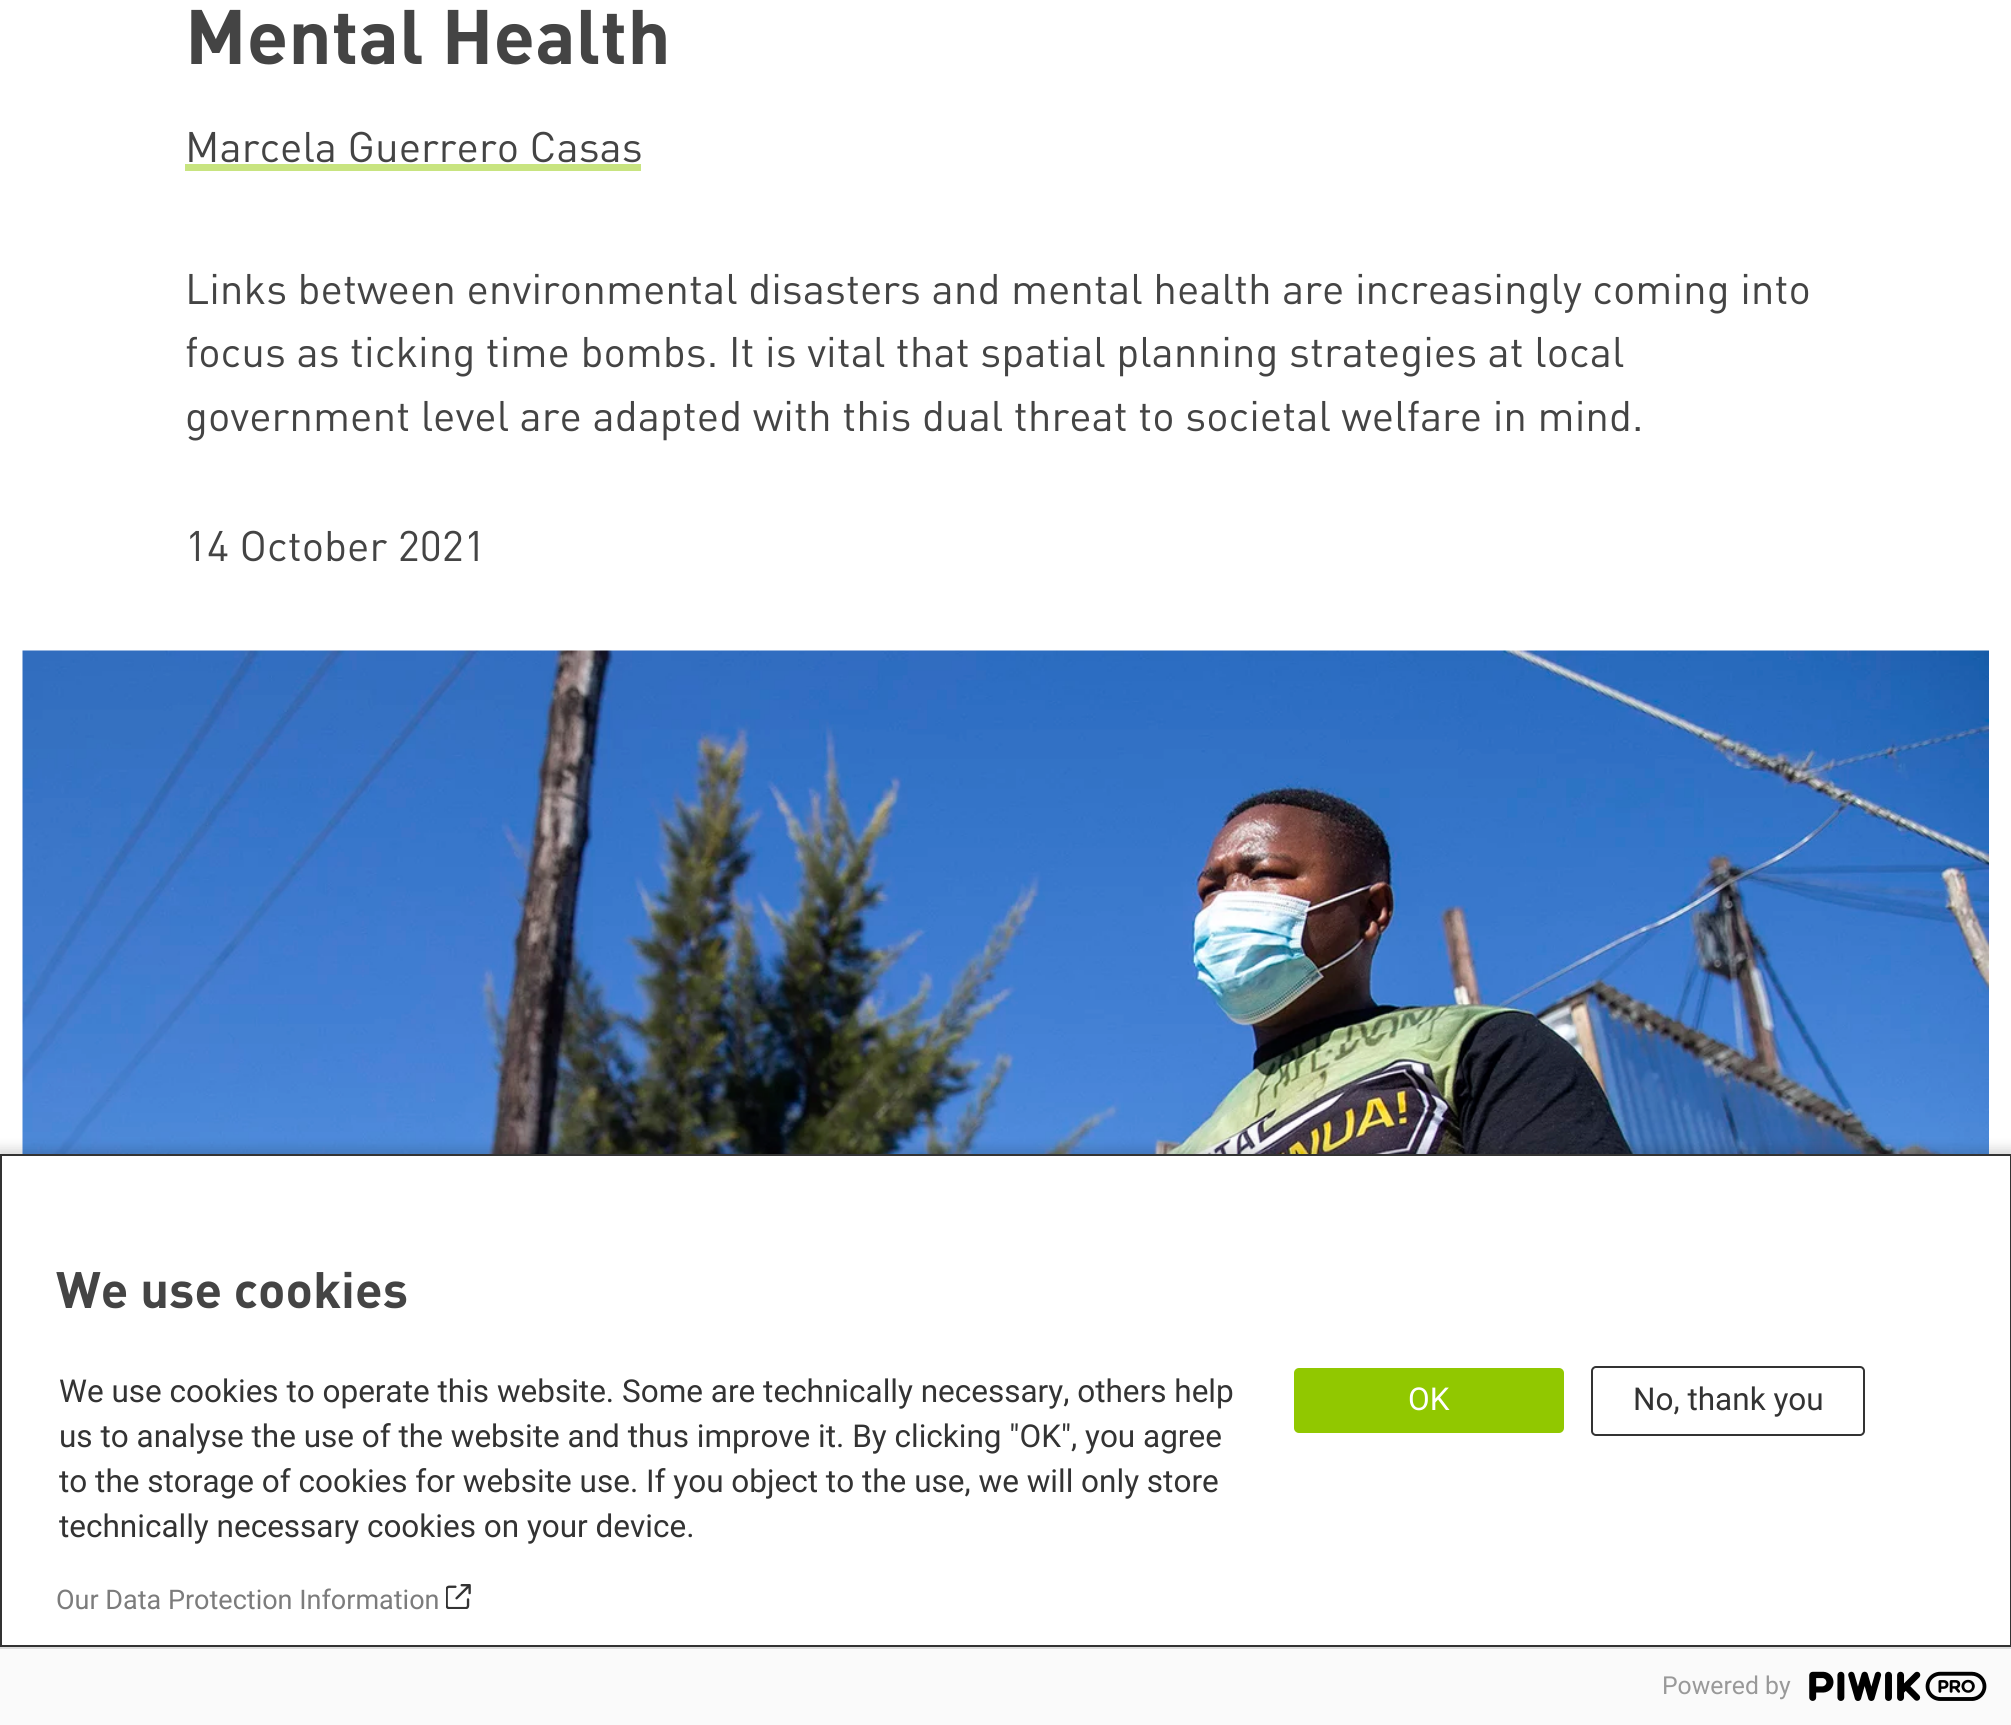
#include <cairo/cairo.h>
#include <math.h>
#include <stddef.h>

typedef struct { double x, y; const char *s; } line_t;
static cairo_t *cr;

static void rgb(unsigned color)
{
	cairo_set_source_rgb(cr, (color >> 16) / 255.0, (color >> 8 & 255) / 255.0, (color & 255) / 255.0);
}

static void rrect(double x, double y, double w, double h, double r)
{
	cairo_new_sub_path(cr);
	cairo_arc(cr, x + w - r, y + h - r, r, 0, M_PI / 2);
	cairo_arc(cr, x + r, y + h - r, r, M_PI / 2, M_PI);
	cairo_arc(cr, x + r, y + r, r, M_PI, 1.5 * M_PI);
	cairo_arc(cr, x + w - r, y + r, r, 1.5 * M_PI, 2 * M_PI);
	cairo_close_path(cr);
}

static void soft_shadow(double x, double y, double w, double h, double r, double blur, double alpha)
{
	cairo_push_group_with_content(cr, CAIRO_CONTENT_ALPHA);
	cairo_set_operator(cr, CAIRO_OPERATOR_SOURCE);
	for (int i = 15; i >= -15 && fmin(w, h) + blur * i / 3 > 0; i -= 2) {
		double e = blur * i / 6;
		cairo_set_source_rgba(cr, 0, 0, 0, alpha * erfc((i - 1) / 8.5) / 2);
		rrect(x - e, y - e, w + 2 * e, h + 2 * e, fmax(0, fmin(r + e + blur * .6, fmin(w, h) / 2 + e)));
		cairo_fill(cr);
	}
	cairo_pattern_t *soft = cairo_pop_group(cr);
	cairo_mask(cr, soft);
	cairo_pattern_destroy(soft);
}

static void image(const char *path, double x, double y, double w, double h)
{
	cairo_surface_t *image = cairo_image_surface_create_from_png(path);
	cairo_save(cr);
	cairo_set_source_surface(cr, image, x, y);
	cairo_rectangle(cr, x, y, w, h);
	cairo_fill(cr);
	cairo_restore(cr);
	cairo_surface_destroy(image);
}

int main(void) {
	cairo_surface_t *surface = cairo_image_surface_create(CAIRO_FORMAT_RGB24, 2011, 1725);
	cr = cairo_create(surface);
	cairo_font_options_t *options = cairo_font_options_create();
	cairo_font_options_set_hint_metrics(options, CAIRO_HINT_METRICS_OFF);
	cairo_font_options_set_hint_style(options, CAIRO_HINT_STYLE_NONE);
	cairo_set_font_options(cr, options);
	cairo_set_miter_limit(cr, 4);
	rgb(0xffffff);
	cairo_paint(cr);
	rgb(0xc8e480);
	cairo_rectangle(cr, 185, 164, 456, 7);
	cairo_fill(cr);
	image("img/1.png", 22, 650, 1967, 504);
	rgb(0x000000);
	soft_shadow(-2, 1148, 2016, 576, 0, 5.5, 0.14);
	rgb(0xffffff);
	cairo_rectangle(cr, 1, 1155, 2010, 491);
	cairo_fill_preserve(cr);
	rgb(0x333333);
	cairo_stroke(cr);
	image("img/2.png", 446, 1584, 25, 25);
	rgb(0x91c800);
	rrect(1294, 1368, 270, 65, 5);
	cairo_fill(cr);
	rrect(1592, 1367, 272, 68, 4);
	rgb(0x333333);
	cairo_stroke(cr);
	rgb(0xfafafa);
	cairo_rectangle(cr, 0, 1649, 2011, 76);
	cairo_fill(cr);
	rgb(0xdddddd);
	cairo_rectangle(cr, 0, 1647, 2011, 2);
	cairo_fill(cr);
	image("img/3.png", 1809, 1671, 178, 30);
	cairo_select_font_face(cr, "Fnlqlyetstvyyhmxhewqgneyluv", CAIRO_FONT_SLANT_NORMAL, CAIRO_FONT_WEIGHT_BOLD);
	cairo_set_font_size(cr, 76);
	rgb(0x444444);
	cairo_move_to(cr, 185, 64);
	cairo_show_text(cr, "Mental Health");
	cairo_select_font_face(cr, "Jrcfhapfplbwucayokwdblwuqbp", CAIRO_FONT_SLANT_NORMAL, CAIRO_FONT_WEIGHT_NORMAL);
	cairo_set_font_size(cr, 42.2);
	{
		static const line_t items[] = {
			{185, 162, "Marcela Guerrero Casas"},
			{185, 304, "Links between environmental disasters and mental health are increasingly coming into"},
			{185, 367, "focus as ticking time bombs. It is vital that spatial planning strategies at local"},
			{185, 431, "government level are adapted with this dual threat to societal welfare in mind."},
			{185, 561, "14 October 2021"},
		};
		for (size_t i = 0; i < sizeof items / sizeof *items; i++) {
			cairo_move_to(cr, items[i].x, items[i].y);
			cairo_show_text(cr, items[i].s);
		}
	}
	cairo_select_font_face(cr, "Fnlqlyetstvyyhmxhewqgneyluv", CAIRO_FONT_SLANT_NORMAL, CAIRO_FONT_WEIGHT_BOLD);
	cairo_set_font_size(cr, 50.5);
	cairo_move_to(cr, 56, 1308);
	cairo_show_text(cr, "We use cookies");
	cairo_select_font_face(cr, "Roboto", CAIRO_FONT_SLANT_NORMAL, CAIRO_FONT_WEIGHT_NORMAL);
	cairo_set_font_size(cr, 31.5);
	rgb(0x333333);
	{
		static const line_t items[] = {
			{59, 1402, "We use cookies to operate this website. Some are technically necessary, others help"},
			{59, 1447, "us to analyse the use of the website and thus improve it. By clicking \"OK\", you agree"},
			{59, 1492, "to the storage of cookies for website use. If you object to the use, we will only store"},
			{59, 1537, "technically necessary cookies on your device."},
		};
		for (size_t i = 0; i < sizeof items / sizeof *items; i++) {
			cairo_move_to(cr, items[i].x, items[i].y);
			cairo_show_text(cr, items[i].s);
		}
	}
	cairo_set_font_size(cr, 27);
	rgb(0x7c7c7c);
	cairo_move_to(cr, 56, 1609);
	cairo_show_text(cr, "Our Data Protection Information");
	cairo_set_font_size(cr, 31.5);
	rgb(0xffffff);
	cairo_move_to(cr, 1408, 1410);
	cairo_show_text(cr, "OK");
	rgb(0x333333);
	cairo_move_to(cr, 1633, 1410);
	cairo_show_text(cr, "No, thank you");
	cairo_set_font_size(cr, 24.75);
	rgb(0x999999);
	cairo_move_to(cr, 1662, 1694);
	cairo_show_text(cr, "Powered by");
	cairo_surface_write_to_png(surface, "page.png");
	cairo_font_options_destroy(options);
	cairo_destroy(cr);
	cairo_surface_destroy(surface);
	return 0;
}
